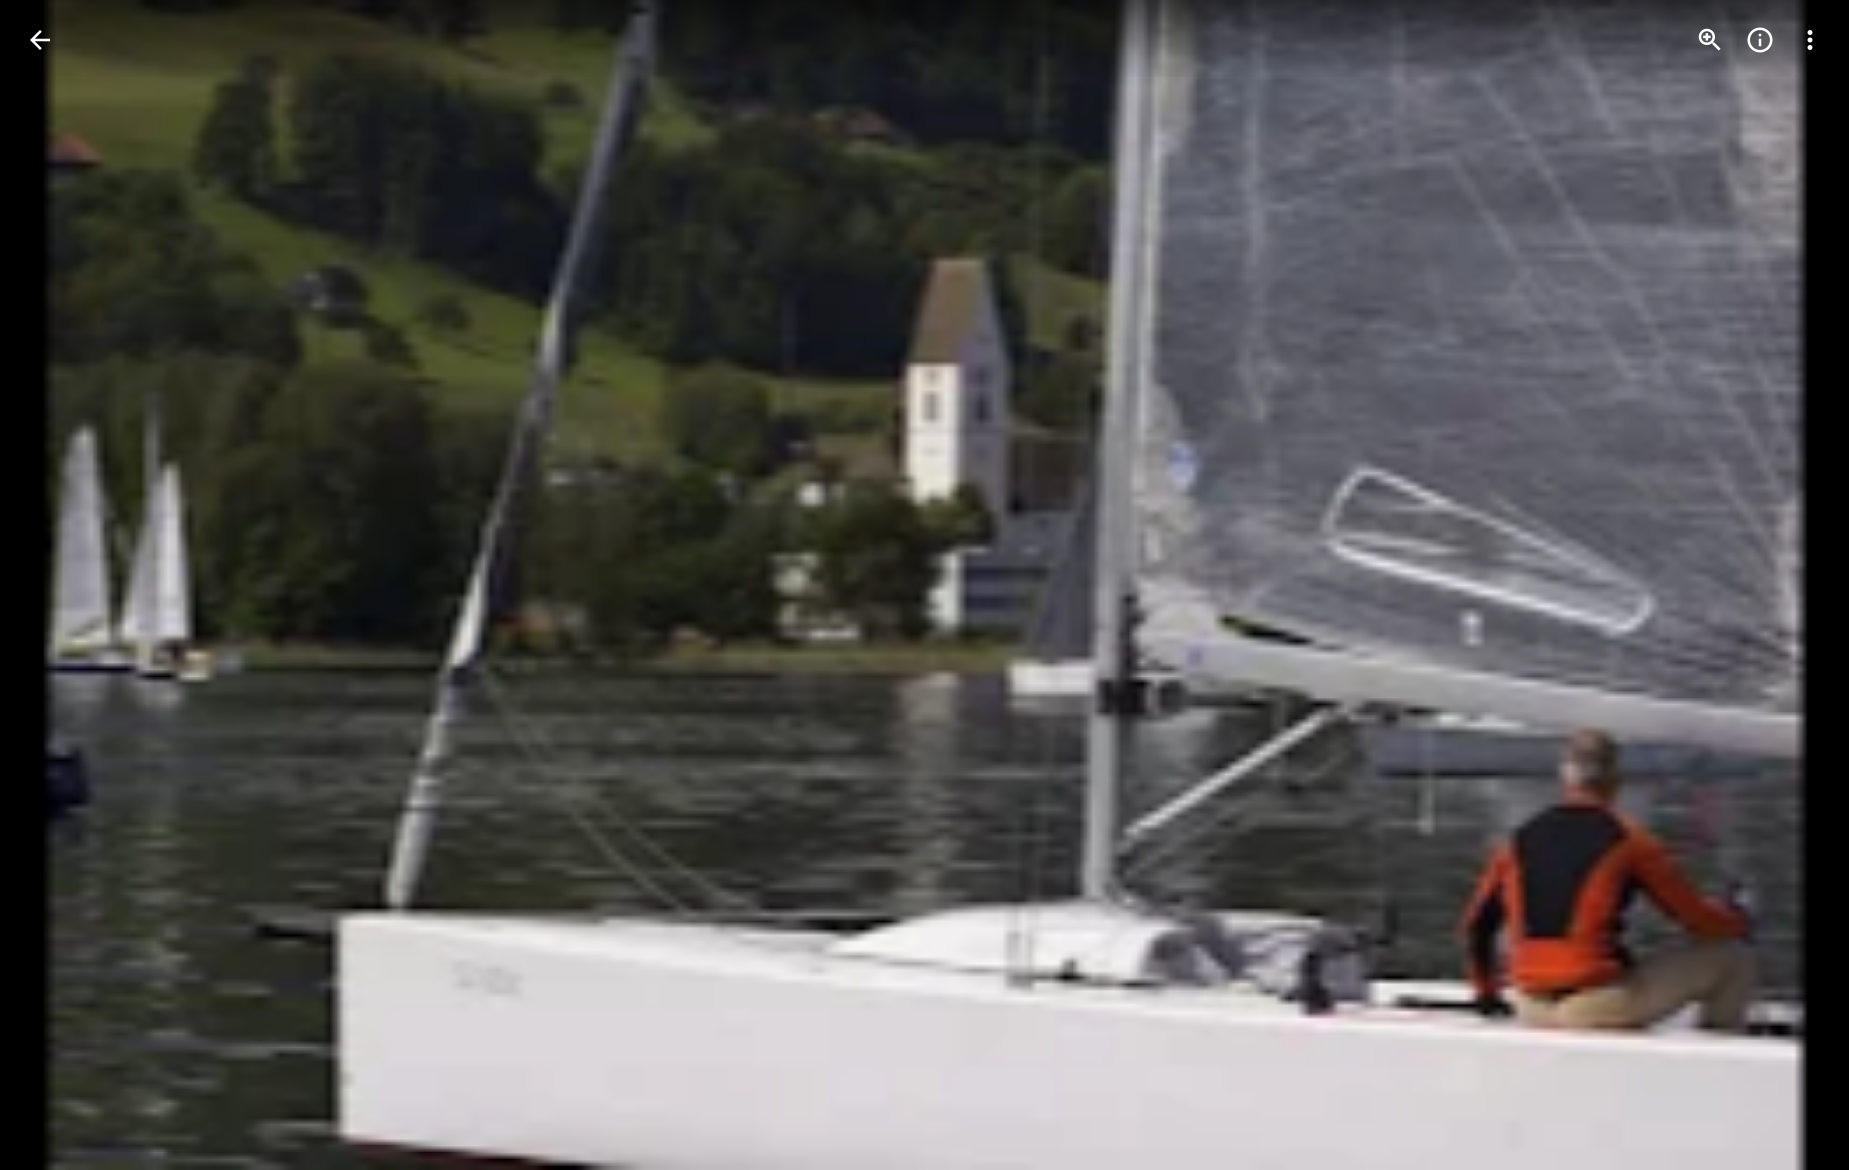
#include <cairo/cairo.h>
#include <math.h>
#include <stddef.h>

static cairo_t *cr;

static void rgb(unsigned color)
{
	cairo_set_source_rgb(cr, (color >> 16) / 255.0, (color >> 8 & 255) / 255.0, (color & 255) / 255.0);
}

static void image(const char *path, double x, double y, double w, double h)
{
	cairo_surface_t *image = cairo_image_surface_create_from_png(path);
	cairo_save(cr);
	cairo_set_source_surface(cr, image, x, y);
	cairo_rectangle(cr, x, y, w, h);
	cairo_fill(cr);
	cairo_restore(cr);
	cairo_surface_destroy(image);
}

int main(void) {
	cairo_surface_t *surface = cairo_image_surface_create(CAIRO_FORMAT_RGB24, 1849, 1170);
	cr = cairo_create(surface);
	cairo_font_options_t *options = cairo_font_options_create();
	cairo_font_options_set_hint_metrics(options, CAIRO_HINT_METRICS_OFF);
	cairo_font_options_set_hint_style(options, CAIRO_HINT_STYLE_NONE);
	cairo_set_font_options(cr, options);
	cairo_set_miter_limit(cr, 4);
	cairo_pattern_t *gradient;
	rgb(0x000000);
	cairo_paint(cr);
	image("img/5.png", 43, 0, 1765, 1170);
	gradient = cairo_pattern_create_linear(925, 0, 925, 80);
	cairo_pattern_add_color_stop_rgba(gradient, 0, 0, 0, 0, 0.6);
	cairo_pattern_add_color_stop_rgba(gradient, 1, 0, 0, 0, 0);
	cairo_set_source(cr, gradient);
	cairo_pattern_destroy(gradient);
	cairo_rectangle(cr, 43, 0, 1764, 77);
	cairo_fill(cr);
	image("img/1.png", 30, 30, 20, 20);
	image("img/2.png", 1698, 28, 23, 23);
	image("img/3.png", 1747, 27, 26, 26);
	image("img/4.png", 1807, 30, 6, 20);
	cairo_surface_write_to_png(surface, "page.png");
	cairo_font_options_destroy(options);
	cairo_destroy(cr);
	cairo_surface_destroy(surface);
	return 0;
}
